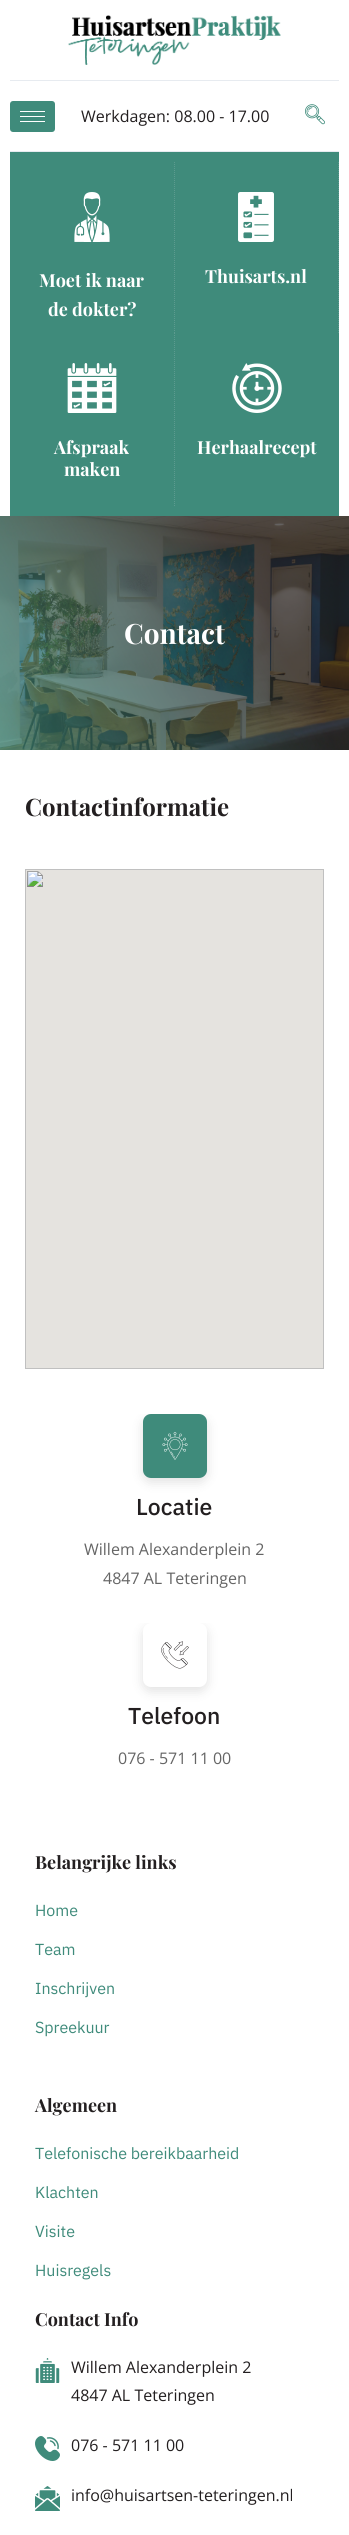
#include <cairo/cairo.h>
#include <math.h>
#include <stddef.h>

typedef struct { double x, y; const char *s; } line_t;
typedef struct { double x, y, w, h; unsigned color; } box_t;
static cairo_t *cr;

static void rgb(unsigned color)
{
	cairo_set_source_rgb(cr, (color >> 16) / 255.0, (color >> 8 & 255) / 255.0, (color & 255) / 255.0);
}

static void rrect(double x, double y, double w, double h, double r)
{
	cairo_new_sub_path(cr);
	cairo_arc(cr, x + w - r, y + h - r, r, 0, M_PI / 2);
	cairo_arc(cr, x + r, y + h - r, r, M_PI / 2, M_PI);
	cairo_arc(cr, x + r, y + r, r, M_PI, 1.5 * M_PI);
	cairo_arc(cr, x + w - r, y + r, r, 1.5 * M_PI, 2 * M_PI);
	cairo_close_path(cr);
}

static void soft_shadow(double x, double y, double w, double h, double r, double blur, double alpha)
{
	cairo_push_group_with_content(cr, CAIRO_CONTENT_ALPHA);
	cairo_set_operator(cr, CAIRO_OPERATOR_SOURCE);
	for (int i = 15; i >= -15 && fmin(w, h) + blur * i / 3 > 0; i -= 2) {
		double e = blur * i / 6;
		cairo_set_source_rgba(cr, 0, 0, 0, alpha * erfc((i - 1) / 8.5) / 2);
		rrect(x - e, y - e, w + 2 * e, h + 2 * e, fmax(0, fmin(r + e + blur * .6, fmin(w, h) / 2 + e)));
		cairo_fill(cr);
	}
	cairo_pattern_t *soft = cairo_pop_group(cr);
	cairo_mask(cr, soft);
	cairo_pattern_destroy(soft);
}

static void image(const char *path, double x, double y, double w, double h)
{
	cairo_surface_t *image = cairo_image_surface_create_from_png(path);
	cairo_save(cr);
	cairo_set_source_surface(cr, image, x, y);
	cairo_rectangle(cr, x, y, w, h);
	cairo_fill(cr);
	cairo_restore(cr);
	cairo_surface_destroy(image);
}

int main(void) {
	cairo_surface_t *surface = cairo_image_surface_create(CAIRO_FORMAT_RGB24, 349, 2535);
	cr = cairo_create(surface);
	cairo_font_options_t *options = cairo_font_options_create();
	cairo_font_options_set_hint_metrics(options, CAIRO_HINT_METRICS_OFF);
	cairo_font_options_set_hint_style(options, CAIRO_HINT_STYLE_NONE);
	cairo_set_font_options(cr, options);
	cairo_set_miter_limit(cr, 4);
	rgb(0xffffff);
	cairo_paint(cr);
	image("img/1.png", 68, 15, 213, 50);
	rgb(0xe7ebf0);
	cairo_rectangle(cr, 10, 80, 329, 1);
	cairo_fill(cr);
	rgb(0x3f8b7b);
	rrect(10, 101, 45, 31, 3);
	cairo_fill(cr);
	{
		static const box_t items[] = {
			{20, 111, 25, 1, 0xffffff},
			{20, 116, 25, 1, 0xffffff},
			{20, 121, 25, 1, 0xffffff},
		};
		for (size_t i = 0; i < sizeof items / sizeof *items; i++) {
			rgb(items[i].color);
			cairo_rectangle(cr, items[i].x, items[i].y, items[i].w, items[i].h);
			cairo_fill(cr);
		}
	}
	image("img/2.png", 305, 104, 20, 21);
	rgb(0x3f8b7b);
	cairo_rectangle(cr, 10, 152, 329, 364);
	cairo_fill(cr);
	rgb(0xe7ebf0);
	cairo_rectangle(cr, 10, 151, 329, 1);
	cairo_fill(cr);
	cairo_new_path(cr);
	cairo_move_to(cr, 174.5, 162);
	cairo_line_to(cr, 174.5, 333);
	rgb(0x5c9b8f);
	cairo_set_line_width(cr, 1);
	cairo_set_dash(cr, (double[]){1, 1}, 2, 0);
	cairo_stroke(cr);
	image("img/3.png", 74, 192, 36, 50);
	cairo_new_path(cr);
	cairo_move_to(cr, 338.5, 162);
	cairo_line_to(cr, 338.5, 333);
	cairo_stroke(cr);
	image("img/4.png", 238, 192, 36, 50);
	cairo_new_path(cr);
	cairo_move_to(cr, 174.5, 333);
	cairo_line_to(cr, 174.5, 506);
	cairo_stroke(cr);
	image("img/5.png", 67, 363, 50, 50);
	image("img/6.png", 232, 363, 50, 50);
	image("img/7.png", 0, 516, 349, 234);
	image("img/8.png", 25, 869, 299, 500);
	cairo_save(cr);
	rrect(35, 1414, 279, 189, 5);
	cairo_clip(cr);
	rgb(0x000000);
	soft_shadow(143, 1418, 64, 64, 8, 6, 0.12);
	cairo_restore(cr);
	rgb(0x3f8b7b);
	rrect(143, 1414, 64, 64, 8);
	cairo_fill(cr);
	image("img/9.png", 162, 1432, 26, 28);
	cairo_save(cr);
	rrect(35, 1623, 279, 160, 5);
	cairo_clip(cr);
	rgb(0x000000);
	soft_shadow(143, 1627, 64, 64, 8, 6, 0.12);
	cairo_restore(cr);
	rgb(0xffffff);
	rrect(143, 1623, 64, 64, 8);
	cairo_fill(cr);
	image("img/10.png", 161, 1641, 28, 28);
	image("img/11.png", 35, 2358, 25, 25);
	image("img/12.png", 35, 2436, 25, 25);
	image("img/13.png", 35, 2486, 25, 25);
	cairo_select_font_face(cr, "Open Sans", CAIRO_FONT_SLANT_NORMAL, CAIRO_FONT_WEIGHT_NORMAL);
	cairo_set_font_size(cr, 16);
	rgb(0x231f20);
	cairo_move_to(cr, 81, 122);
	cairo_show_text(cr, "Werkdagen: 08.00 - 17.00");
	cairo_select_font_face(cr, "Playfair Display", CAIRO_FONT_SLANT_NORMAL, CAIRO_FONT_WEIGHT_BOLD);
	cairo_set_font_size(cr, 18);
	rgb(0xffffff);
	{
		static const line_t items[] = {
			{39, 287, "Moet ik naar"},
			{48, 316, "de dokter?"},
			{205, 283, "Thuisarts.nl"},
			{54, 454, "Afspraak"},
			{64, 476, "maken"},
			{197, 454, "Herhaalrecept"},
		};
		for (size_t i = 0; i < sizeof items / sizeof *items; i++) {
			cairo_move_to(cr, items[i].x, items[i].y);
			cairo_show_text(cr, items[i].s);
		}
	}
	cairo_set_font_size(cr, 28);
	cairo_move_to(cr, 124, 644);
	cairo_show_text(cr, "Contact");
	cairo_set_font_size(cr, 24);
	rgb(0x231f20);
	cairo_move_to(cr, 25, 816);
	cairo_show_text(cr, "Contactinformatie");
	cairo_select_font_face(cr, "IBM Plex Sans Medium", CAIRO_FONT_SLANT_NORMAL, CAIRO_FONT_WEIGHT_NORMAL);
	cairo_set_font_size(cr, 23);
	cairo_move_to(cr, 136, 1515);
	cairo_show_text(cr, "Locatie");
	cairo_select_font_face(cr, "Open Sans", CAIRO_FONT_SLANT_NORMAL, CAIRO_FONT_WEIGHT_NORMAL);
	cairo_set_font_size(cr, 16);
	rgb(0x656565);
	cairo_move_to(cr, 84, 1555);
	cairo_show_text(cr, "Willem Alexanderplein 2");
	cairo_move_to(cr, 103, 1584);
	cairo_show_text(cr, "4847 AL Teteringen");
	cairo_select_font_face(cr, "IBM Plex Sans Medium", CAIRO_FONT_SLANT_NORMAL, CAIRO_FONT_WEIGHT_NORMAL);
	cairo_set_font_size(cr, 23);
	rgb(0x231f20);
	cairo_move_to(cr, 128, 1724);
	cairo_show_text(cr, "Telefoon");
	cairo_select_font_face(cr, "Open Sans", CAIRO_FONT_SLANT_NORMAL, CAIRO_FONT_WEIGHT_NORMAL);
	cairo_set_font_size(cr, 16);
	rgb(0x656565);
	cairo_move_to(cr, 118, 1764);
	cairo_show_text(cr, "076 - 571 11 00");
	cairo_select_font_face(cr, "Playfair Display", CAIRO_FONT_SLANT_NORMAL, CAIRO_FONT_WEIGHT_BOLD);
	cairo_set_font_size(cr, 18);
	rgb(0x231f20);
	cairo_move_to(cr, 35, 1869);
	cairo_show_text(cr, "Belangrijke links");
	cairo_select_font_face(cr, "IBM Plex Sans", CAIRO_FONT_SLANT_NORMAL, CAIRO_FONT_WEIGHT_NORMAL);
	cairo_set_font_size(cr, 16);
	rgb(0x3f8b7b);
	{
		static const line_t items[] = {
			{35, 1916, "Home"},
			{35, 1955, "Team"},
			{35, 1994, "Inschrijven"},
			{35, 2033, "Spreekuur"},
		};
		for (size_t i = 0; i < sizeof items / sizeof *items; i++) {
			cairo_move_to(cr, items[i].x, items[i].y);
			cairo_show_text(cr, items[i].s);
		}
	}
	cairo_select_font_face(cr, "Playfair Display", CAIRO_FONT_SLANT_NORMAL, CAIRO_FONT_WEIGHT_BOLD);
	cairo_set_font_size(cr, 18);
	rgb(0x231f20);
	cairo_move_to(cr, 35, 2112);
	cairo_show_text(cr, "Algemeen");
	cairo_select_font_face(cr, "IBM Plex Sans", CAIRO_FONT_SLANT_NORMAL, CAIRO_FONT_WEIGHT_NORMAL);
	cairo_set_font_size(cr, 16);
	rgb(0x3f8b7b);
	{
		static const line_t items[] = {
			{35, 2159, "Telefonische bereikbaarheid"},
			{35, 2198, "Klachten"},
			{35, 2237, "Visite"},
			{35, 2276, "Huisregels"},
		};
		for (size_t i = 0; i < sizeof items / sizeof *items; i++) {
			cairo_move_to(cr, items[i].x, items[i].y);
			cairo_show_text(cr, items[i].s);
		}
	}
	cairo_select_font_face(cr, "Playfair Display", CAIRO_FONT_SLANT_NORMAL, CAIRO_FONT_WEIGHT_BOLD);
	cairo_set_font_size(cr, 18);
	rgb(0x231f20);
	cairo_move_to(cr, 35, 2326);
	cairo_show_text(cr, "Contact Info");
	cairo_select_font_face(cr, "Open Sans", CAIRO_FONT_SLANT_NORMAL, CAIRO_FONT_WEIGHT_NORMAL);
	cairo_set_font_size(cr, 16);
	{
		static const line_t items[] = {
			{71, 2373, "Willem Alexanderplein 2"},
			{71, 2401, "4847 AL Teteringen"},
			{71, 2451, "076 - 571 11 00"},
			{71, 2501, "info@huisartsen-teteringen.nl"},
		};
		for (size_t i = 0; i < sizeof items / sizeof *items; i++) {
			cairo_move_to(cr, items[i].x, items[i].y);
			cairo_show_text(cr, items[i].s);
		}
	}
	cairo_surface_write_to_png(surface, "page.png");
	cairo_font_options_destroy(options);
	cairo_destroy(cr);
	cairo_surface_destroy(surface);
	return 0;
}
